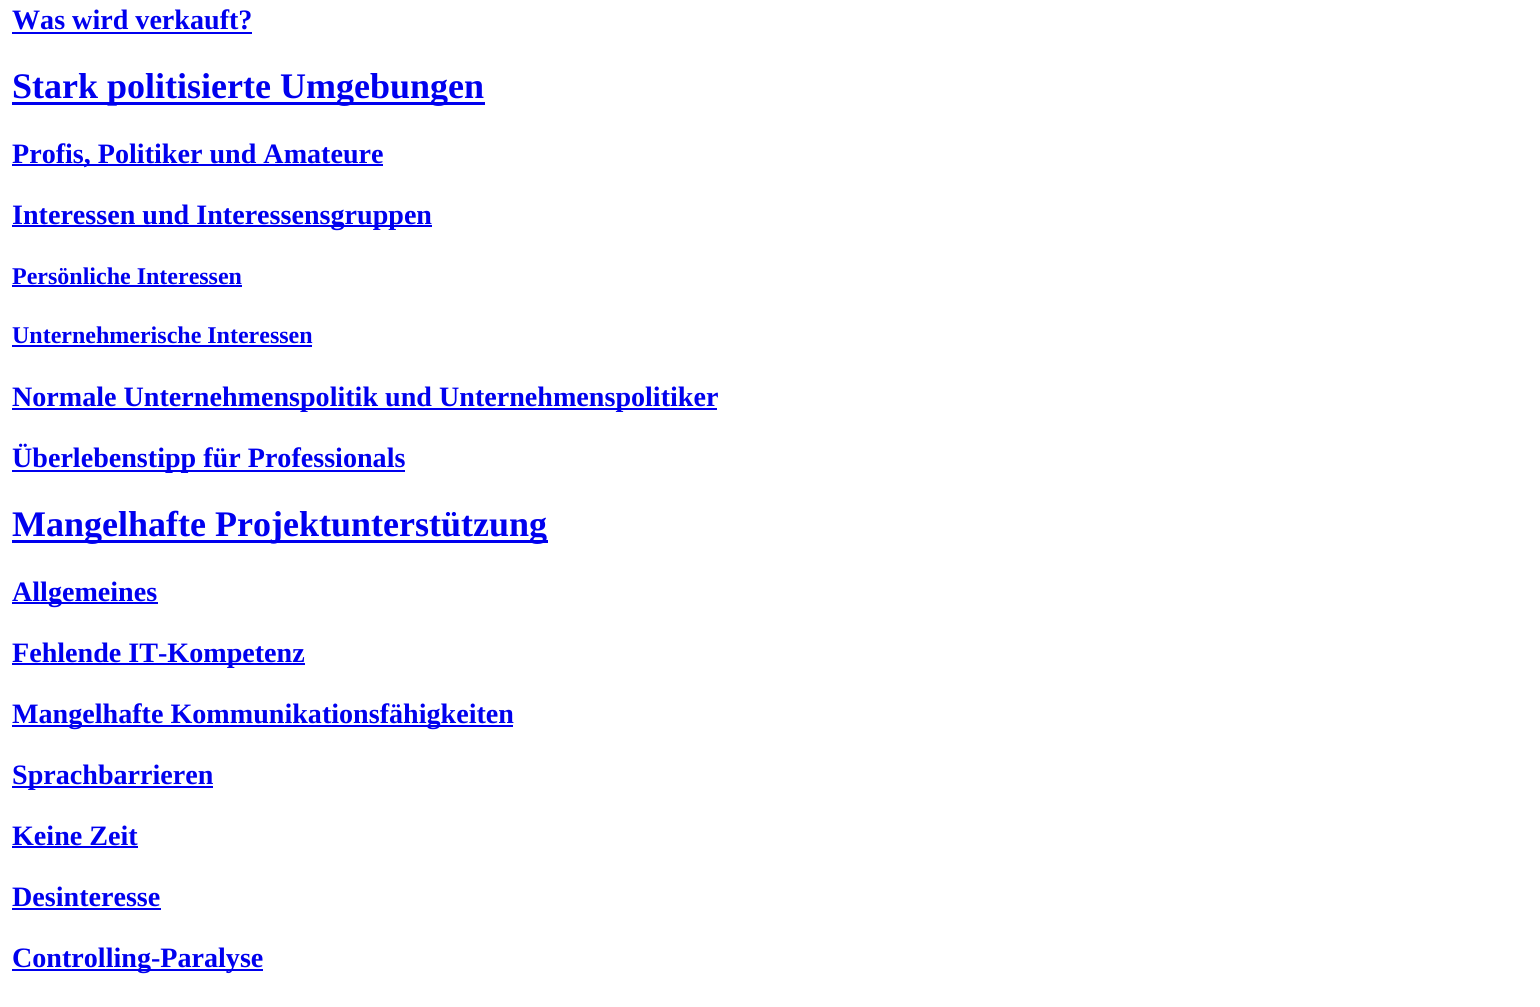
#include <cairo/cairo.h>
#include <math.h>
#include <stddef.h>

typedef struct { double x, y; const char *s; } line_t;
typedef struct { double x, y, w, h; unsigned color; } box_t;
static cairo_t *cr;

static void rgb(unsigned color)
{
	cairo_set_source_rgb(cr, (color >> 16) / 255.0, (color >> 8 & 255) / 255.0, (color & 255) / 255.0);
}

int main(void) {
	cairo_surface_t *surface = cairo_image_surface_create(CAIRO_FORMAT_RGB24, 1540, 1007);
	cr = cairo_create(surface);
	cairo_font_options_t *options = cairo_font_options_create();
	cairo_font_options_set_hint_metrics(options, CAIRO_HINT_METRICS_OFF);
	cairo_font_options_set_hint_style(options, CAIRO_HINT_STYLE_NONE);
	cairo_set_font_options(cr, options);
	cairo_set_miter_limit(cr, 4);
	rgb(0xffffff);
	cairo_paint(cr);
	{
		static const box_t items[] = {
			{12, 32, 240, 2, 0x0000ee},
			{12, 102, 473, 3, 0x0000ee},
			{12, 164, 371, 2, 0x0000ee},
			{12, 225, 420, 2, 0x0000ee},
			{12, 285, 230, 2, 0x0000ee},
			{12, 345, 300, 2, 0x0000ee},
			{12, 408, 705, 2, 0x0000ee},
			{12, 470, 393, 2, 0x0000ee},
			{12, 540, 536, 3, 0x0000ee},
			{12, 602, 146, 2, 0x0000ee},
			{12, 663, 293, 2, 0x0000ee},
			{12, 725, 501, 2, 0x0000ee},
			{12, 786, 201, 2, 0x0000ee},
			{12, 846, 126, 2, 0x0000ee},
			{12, 908, 149, 2, 0x0000ee},
			{12, 969, 251, 2, 0x0000ee},
		};
		for (size_t i = 0; i < sizeof items / sizeof *items; i++) {
			rgb(items[i].color);
			cairo_rectangle(cr, items[i].x, items[i].y, items[i].w, items[i].h);
			cairo_fill(cr);
		}
	}
	cairo_select_font_face(cr, "Liberation Serif", CAIRO_FONT_SLANT_NORMAL, CAIRO_FONT_WEIGHT_BOLD);
	cairo_set_font_size(cr, 28.1);
	cairo_move_to(cr, 12, 29);
	cairo_show_text(cr, "Was wird verkauft?");
	cairo_set_font_size(cr, 36);
	cairo_move_to(cr, 12, 98);
	cairo_show_text(cr, "Stark politisierte Umgebungen");
	cairo_set_font_size(cr, 28.1);
	cairo_move_to(cr, 12, 163);
	cairo_show_text(cr, "Profis, Politiker und Amateure");
	cairo_move_to(cr, 12, 224);
	cairo_show_text(cr, "Interessen und Interessensgruppen");
	cairo_set_font_size(cr, 24);
	cairo_move_to(cr, 12, 284);
	cairo_show_text(cr, "Persönliche Interessen");
	cairo_move_to(cr, 12, 343);
	cairo_show_text(cr, "Unternehmerische Interessen");
	cairo_set_font_size(cr, 28.1);
	cairo_move_to(cr, 12, 406);
	cairo_show_text(cr, "Normale Unternehmenspolitik und Unternehmenspolitiker");
	cairo_move_to(cr, 12, 467);
	cairo_show_text(cr, "Überlebenstipp für Professionals");
	cairo_set_font_size(cr, 36);
	cairo_move_to(cr, 12, 536);
	cairo_show_text(cr, "Mangelhafte Projektunterstützung");
	cairo_set_font_size(cr, 28.1);
	{
		static const line_t items[] = {
			{12, 601, "Allgemeines"},
			{12, 662, "Fehlende IT-Kompetenz"},
			{12, 723, "Mangelhafte Kommunikationsfähigkeiten"},
			{12, 784, "Sprachbarrieren"},
			{12, 845, "Keine Zeit"},
			{12, 906, "Desinteresse"},
			{12, 967, "Controlling-Paralyse"},
		};
		for (size_t i = 0; i < sizeof items / sizeof *items; i++) {
			cairo_move_to(cr, items[i].x, items[i].y);
			cairo_show_text(cr, items[i].s);
		}
	}
	cairo_surface_write_to_png(surface, "page.png");
	cairo_font_options_destroy(options);
	cairo_destroy(cr);
	cairo_surface_destroy(surface);
	return 0;
}
